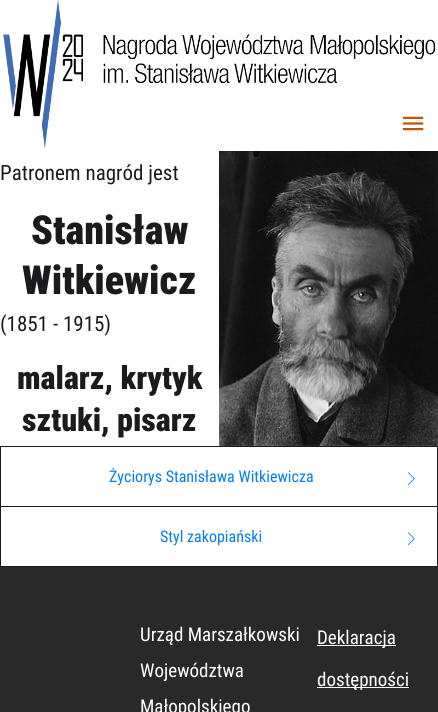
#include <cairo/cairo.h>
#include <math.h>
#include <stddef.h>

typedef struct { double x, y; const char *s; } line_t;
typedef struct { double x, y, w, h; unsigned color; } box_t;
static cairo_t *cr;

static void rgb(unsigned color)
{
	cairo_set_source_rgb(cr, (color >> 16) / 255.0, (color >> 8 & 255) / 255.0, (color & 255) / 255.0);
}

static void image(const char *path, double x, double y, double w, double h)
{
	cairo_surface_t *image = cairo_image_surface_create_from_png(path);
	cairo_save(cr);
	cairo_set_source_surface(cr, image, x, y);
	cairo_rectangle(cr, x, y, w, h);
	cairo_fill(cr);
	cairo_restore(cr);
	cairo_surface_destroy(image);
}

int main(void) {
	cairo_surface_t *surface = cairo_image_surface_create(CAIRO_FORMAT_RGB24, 438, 712);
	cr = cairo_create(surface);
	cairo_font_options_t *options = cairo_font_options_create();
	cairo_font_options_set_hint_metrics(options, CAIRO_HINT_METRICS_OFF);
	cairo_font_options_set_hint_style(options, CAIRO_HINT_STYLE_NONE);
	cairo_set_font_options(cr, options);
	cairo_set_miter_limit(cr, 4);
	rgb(0xffffff);
	cairo_paint(cr);
	image("img/1.png", 3, 0, 433, 149);
	image("img/2.png", 403, 116, 21, 15);
	image("img/3.png", 219, 151, 219, 295);
	{
		static const box_t items[] = {
			{0, 446, 438, 1, 0x1b1b1d},
			{437, 446, 1, 60, 0x1b1b1d},
			{0, 446, 1, 60, 0x1b1b1d},
		};
		for (size_t i = 0; i < sizeof items / sizeof *items; i++) {
			rgb(items[i].color);
			cairo_rectangle(cr, items[i].x, items[i].y, items[i].w, items[i].h);
			cairo_fill(cr);
		}
	}
	image("img/4.png", 407, 472, 8, 14);
	cairo_rectangle(cr, 0.5, 506.5, 437, 60);
	cairo_set_line_width(cr, 1);
	cairo_stroke(cr);
	image("img/4.png", 407, 532, 8, 14);
	{
		static const box_t items[] = {
			{0, 567, 438, 145, 0x29292a},
			{317, 645, 79, 1, 0xffffff},
			{317, 687, 92, 1, 0xffffff},
		};
		for (size_t i = 0; i < sizeof items / sizeof *items; i++) {
			rgb(items[i].color);
			cairo_rectangle(cr, items[i].x, items[i].y, items[i].w, items[i].h);
			cairo_fill(cr);
		}
	}
	cairo_select_font_face(cr, "Roboto Condensed", CAIRO_FONT_SLANT_NORMAL, CAIRO_FONT_WEIGHT_NORMAL);
	cairo_set_font_size(cr, 21);
	rgb(0x1b1b1d);
	cairo_move_to(cr, 0, 180);
	cairo_show_text(cr, "Patronem nagród jest");
	cairo_select_font_face(cr, "Roboto Condensed Black", CAIRO_FONT_SLANT_NORMAL, CAIRO_FONT_WEIGHT_NORMAL);
	cairo_set_font_size(cr, 40);
	cairo_move_to(cr, 31, 244);
	cairo_show_text(cr, "Stanisław");
	cairo_move_to(cr, 22, 294);
	cairo_show_text(cr, "Witkiewicz");
	cairo_select_font_face(cr, "Roboto Condensed", CAIRO_FONT_SLANT_NORMAL, CAIRO_FONT_WEIGHT_NORMAL);
	cairo_set_font_size(cr, 21);
	cairo_move_to(cr, 0, 331);
	cairo_show_text(cr, "(1851 - 1915)");
	cairo_select_font_face(cr, "Roboto Condensed Black", CAIRO_FONT_SLANT_NORMAL, CAIRO_FONT_WEIGHT_NORMAL);
	cairo_set_font_size(cr, 32);
	cairo_move_to(cr, 17, 389);
	cairo_show_text(cr, "malarz, krytyk");
	cairo_move_to(cr, 22, 431);
	cairo_show_text(cr, "sztuki, pisarz");
	cairo_select_font_face(cr, "Roboto Condensed", CAIRO_FONT_SLANT_NORMAL, CAIRO_FONT_WEIGHT_NORMAL);
	cairo_set_font_size(cr, 16);
	rgb(0x007df7);
	cairo_move_to(cr, 109, 482);
	cairo_show_text(cr, "Życiorys Stanisława Witkiewicza");
	cairo_move_to(cr, 160, 542);
	cairo_show_text(cr, "Styl zakopiański");
	cairo_set_font_size(cr, 19);
	rgb(0xffffff);
	{
		static const line_t items[] = {
			{140, 641, "Urząd Marszałkowski"},
			{140, 677, "Województwa"},
			{140, 713, "Małopolskiego"},
			{317, 644, "Deklaracja"},
			{317, 686, "dostępności"},
		};
		for (size_t i = 0; i < sizeof items / sizeof *items; i++) {
			cairo_move_to(cr, items[i].x, items[i].y);
			cairo_show_text(cr, items[i].s);
		}
	}
	cairo_surface_write_to_png(surface, "page.png");
	cairo_font_options_destroy(options);
	cairo_destroy(cr);
	cairo_surface_destroy(surface);
	return 0;
}
